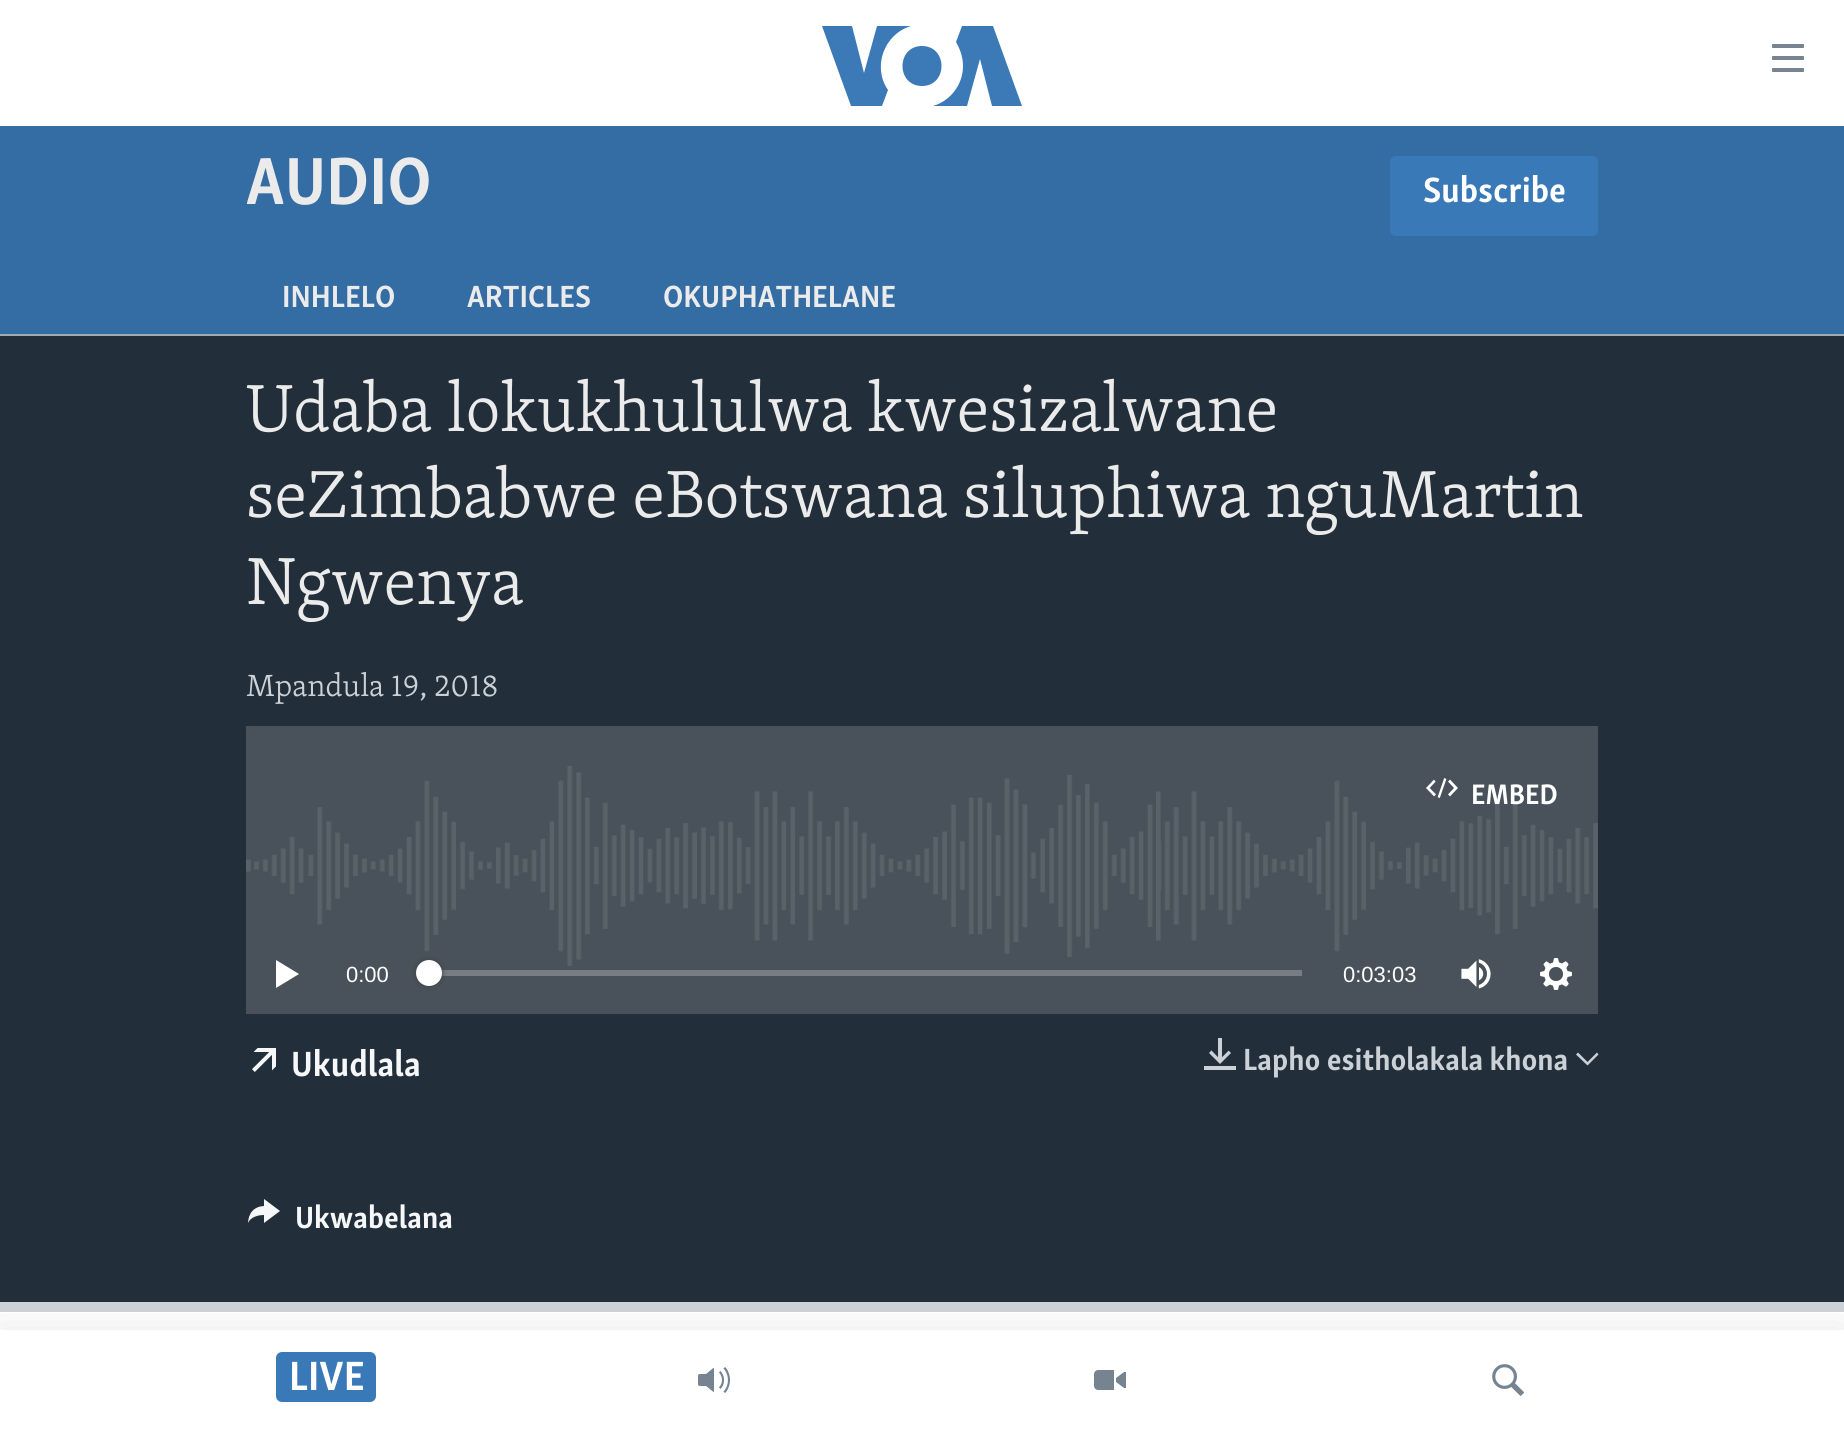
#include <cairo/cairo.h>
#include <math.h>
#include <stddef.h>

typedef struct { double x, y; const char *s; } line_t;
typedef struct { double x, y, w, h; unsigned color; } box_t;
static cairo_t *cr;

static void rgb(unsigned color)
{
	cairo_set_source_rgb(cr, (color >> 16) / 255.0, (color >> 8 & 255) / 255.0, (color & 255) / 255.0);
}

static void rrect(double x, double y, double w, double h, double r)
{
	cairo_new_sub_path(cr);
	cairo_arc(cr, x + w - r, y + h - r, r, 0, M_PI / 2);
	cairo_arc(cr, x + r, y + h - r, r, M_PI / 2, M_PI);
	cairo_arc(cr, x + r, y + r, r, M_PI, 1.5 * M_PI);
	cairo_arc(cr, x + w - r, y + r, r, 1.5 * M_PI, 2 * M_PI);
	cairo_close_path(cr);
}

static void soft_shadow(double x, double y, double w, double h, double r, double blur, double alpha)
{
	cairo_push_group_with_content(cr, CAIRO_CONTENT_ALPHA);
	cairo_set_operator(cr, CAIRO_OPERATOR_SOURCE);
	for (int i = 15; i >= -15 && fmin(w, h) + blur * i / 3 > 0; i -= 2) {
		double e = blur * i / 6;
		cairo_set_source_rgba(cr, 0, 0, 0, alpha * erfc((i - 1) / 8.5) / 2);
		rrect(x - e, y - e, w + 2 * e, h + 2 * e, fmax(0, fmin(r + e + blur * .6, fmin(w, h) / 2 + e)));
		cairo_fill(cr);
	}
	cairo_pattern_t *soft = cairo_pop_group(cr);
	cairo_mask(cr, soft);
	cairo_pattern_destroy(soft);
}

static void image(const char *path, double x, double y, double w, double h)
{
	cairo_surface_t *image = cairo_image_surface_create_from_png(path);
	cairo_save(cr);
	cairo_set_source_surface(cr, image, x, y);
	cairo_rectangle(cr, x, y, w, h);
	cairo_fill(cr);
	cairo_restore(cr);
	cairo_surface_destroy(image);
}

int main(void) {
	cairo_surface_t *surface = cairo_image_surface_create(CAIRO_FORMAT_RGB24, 1844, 1429);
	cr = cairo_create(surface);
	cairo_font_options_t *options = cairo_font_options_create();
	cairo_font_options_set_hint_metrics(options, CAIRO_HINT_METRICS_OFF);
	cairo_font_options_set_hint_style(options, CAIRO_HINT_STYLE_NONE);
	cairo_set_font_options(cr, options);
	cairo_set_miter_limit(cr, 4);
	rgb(0xffffff);
	cairo_paint(cr);
	rgb(0x346ca4);
	cairo_rectangle(cr, 0, 126, 1844, 208);
	cairo_fill(cr);
	rgb(0x3a79b7);
	rrect(1390, 156, 208, 80, 6);
	cairo_fill(cr);
	{
		static const box_t items[] = {
			{0, 336, 1844, 966, 0x222f3a},
			{0, 334, 1844, 2, 0xa1aab4},
			{0, 1302, 1844, 10, 0xcbd1d6},
			{246, 726, 1352, 288, 0x49525a},
		};
		for (size_t i = 0; i < sizeof items / sizeof *items; i++) {
			rgb(items[i].color);
			cairo_rectangle(cr, items[i].x, items[i].y, items[i].w, items[i].h);
			cairo_fill(cr);
		}
	}
	image("img/1.png", 246, 766, 1352, 200);
	image("img/2.png", 1426, 778, 32, 20);
	rgb(0xffffff);
	cairo_new_path(cr);
	cairo_move_to(cr, 276, 988);
	cairo_line_to(cr, 299, 974);
	cairo_line_to(cr, 276, 960);
	cairo_close_path(cr);
	cairo_fill(cr);
	rgb(0x777d83);
	cairo_rectangle(cr, 441, 970, 861, 6);
	cairo_fill(cr);
	rgb(0x414144);
	soft_shadow(416, 960, 26, 26, 13, 3, 1);
	rgb(0xffffff);
	cairo_arc(cr, 429, 973, 13, 0, 2 * M_PI);
	cairo_fill(cr);
	image("img/3.png", 1461, 959, 30, 30);
	image("img/4.png", 1540, 958, 32, 32);
	image("img/5.png", 252, 1048, 24, 24);
	image("img/6.png", 1204, 1038, 32, 32);
	rgb(0xcbd1d6);
	cairo_new_path(cr);
	cairo_move_to(cr, 1576, 1054.5);
	cairo_line_to(cr, 1587.5, 1065.5);
	cairo_line_to(cr, 1598.5, 1054.5);
	cairo_line_to(cr, 1597, 1052.5);
	cairo_line_to(cr, 1587.5, 1062);
	cairo_line_to(cr, 1578, 1052.5);
	cairo_close_path(cr);
	cairo_fill(cr);
	rgb(0xf6f7f8);
	cairo_new_path(cr);
	cairo_move_to(cr, 248, 1223);
	cairo_curve_to(cr, 248.5, 1213, 254, 1206.5, 264, 1206);
	cairo_line_to(cr, 264, 1199);
	cairo_line_to(cr, 280, 1211);
	cairo_line_to(cr, 264, 1223);
	cairo_line_to(cr, 264, 1215);
	cairo_curve_to(cr, 258, 1215, 250.5, 1217, 248, 1223);
	cairo_close_path(cr);
	cairo_fill(cr);
	rgb(0x3b79b7);
	cairo_new_path(cr);
	cairo_move_to(cr, 888, 90);
	cairo_line_to(cr, 882, 106);
	cairo_line_to(cr, 851, 106);
	cairo_line_to(cr, 822, 26);
	cairo_line_to(cr, 852, 26);
	cairo_line_to(cr, 864, 73);
	cairo_line_to(cr, 877, 26);
	cairo_line_to(cr, 911, 26);
	cairo_curve_to(cr, 884, 34, 872, 67, 888, 90);
	cairo_close_path(cr);
	cairo_move_to(cr, 922, 46);
	cairo_curve_to(cr, 896, 46, 896, 86, 922, 86);
	cairo_curve_to(cr, 948, 86, 948, 46, 922, 46);
	cairo_close_path(cr);
	cairo_move_to(cr, 963, 66);
	cairo_curve_to(cr, 963, 85, 950, 101, 933, 106);
	cairo_line_to(cr, 967, 106);
	cairo_line_to(cr, 980, 59);
	cairo_line_to(cr, 992, 106);
	cairo_line_to(cr, 1022, 106);
	cairo_line_to(cr, 993, 26);
	cairo_line_to(cr, 962, 26);
	cairo_line_to(cr, 956, 42);
	cairo_curve_to(cr, 960, 49, 963, 57, 963, 66);
	cairo_close_path(cr);
	cairo_fill(cr);
	image("img/7.png", 1772, 44, 32, 28);
	cairo_save(cr);
	cairo_rectangle(cr, 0, 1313, 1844, 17);
	cairo_clip(cr);
	rgb(0x000000);
	soft_shadow(0, 1330, 1844, 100, 0, 20, 0.1);
	cairo_restore(cr);
	rgb(0x3a79b7);
	rrect(276, 1352, 100, 50, 6);
	cairo_fill(cr);
	image("img/8.png", 698, 1367, 32, 26);
	image("img/9.png", 1094, 1370, 32, 20);
	image("img/10.png", 1492, 1364, 32, 32);
	cairo_select_font_face(cr, "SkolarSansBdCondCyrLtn", CAIRO_FONT_SLANT_NORMAL, CAIRO_FONT_WEIGHT_BOLD);
	cairo_set_font_size(cr, 68.4);
	rgb(0xebebeb);
	cairo_move_to(cr, 246, 204);
	cairo_show_text(cr, "AUDIO");
	cairo_set_font_size(cr, 36);
	rgb(0xffffff);
	cairo_move_to(cr, 1423, 202);
	cairo_show_text(cr, "Subscribe");
	cairo_set_font_size(cr, 31.5);
	rgb(0xebebeb);
	{
		static const line_t items[] = {
			{282, 307, "INHLELO"},
			{467, 307, "ARTICLES"},
			{663, 307, "OKUPHATHELANE"},
		};
		for (size_t i = 0; i < sizeof items / sizeof *items; i++) {
			cairo_move_to(cr, items[i].x, items[i].y);
			cairo_show_text(cr, items[i].s);
		}
	}
	cairo_select_font_face(cr, "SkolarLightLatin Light", CAIRO_FONT_SLANT_NORMAL, CAIRO_FONT_WEIGHT_NORMAL);
	cairo_set_font_size(cr, 68.4);
	{
		static const line_t items[] = {
			{246, 431, "Udaba lokukhululwa kwesizalwane"},
			{246, 517, "seZimbabwe eBotswana siluphiwa nguMartin"},
			{246, 604, "Ngwenya"},
		};
		for (size_t i = 0; i < sizeof items / sizeof *items; i++) {
			cairo_move_to(cr, items[i].x, items[i].y);
			cairo_show_text(cr, items[i].s);
		}
	}
	cairo_set_font_size(cr, 31.5);
	rgb(0xcbd1d6);
	cairo_move_to(cr, 246, 696);
	cairo_show_text(cr, "Mpandula 19, 2018");
	cairo_select_font_face(cr, "SkolarSansBdCondCyrLtn", CAIRO_FONT_SLANT_NORMAL, CAIRO_FONT_WEIGHT_BOLD);
	cairo_set_font_size(cr, 29);
	rgb(0xffffff);
	cairo_move_to(cr, 1471, 804);
	cairo_show_text(cr, "EMBED");
	cairo_select_font_face(cr, "Liberation Sans", CAIRO_FONT_SLANT_NORMAL, CAIRO_FONT_WEIGHT_NORMAL);
	cairo_set_font_size(cr, 22);
	cairo_move_to(cr, 346, 982);
	cairo_show_text(cr, "0:00");
	cairo_move_to(cr, 1343, 982);
	cairo_show_text(cr, "0:03:03");
	cairo_select_font_face(cr, "SkolarSansBdCondCyrLtn", CAIRO_FONT_SLANT_NORMAL, CAIRO_FONT_WEIGHT_BOLD);
	cairo_set_font_size(cr, 36);
	rgb(0xf6f7f8);
	cairo_move_to(cr, 291, 1076);
	cairo_show_text(cr, "Ukudlala");
	cairo_set_font_size(cr, 31.5);
	rgb(0xcbd1d6);
	cairo_move_to(cr, 1243, 1070);
	cairo_show_text(cr, "Lapho esitholakala khona");
	rgb(0xf6f7f8);
	cairo_move_to(cr, 295, 1228);
	cairo_show_text(cr, "Ukwabelana");
	cairo_set_font_size(cr, 42);
	rgb(0xffffff);
	cairo_move_to(cr, 289, 1390);
	cairo_show_text(cr, "LIVE");
	cairo_surface_write_to_png(surface, "page.png");
	cairo_font_options_destroy(options);
	cairo_destroy(cr);
	cairo_surface_destroy(surface);
	return 0;
}
